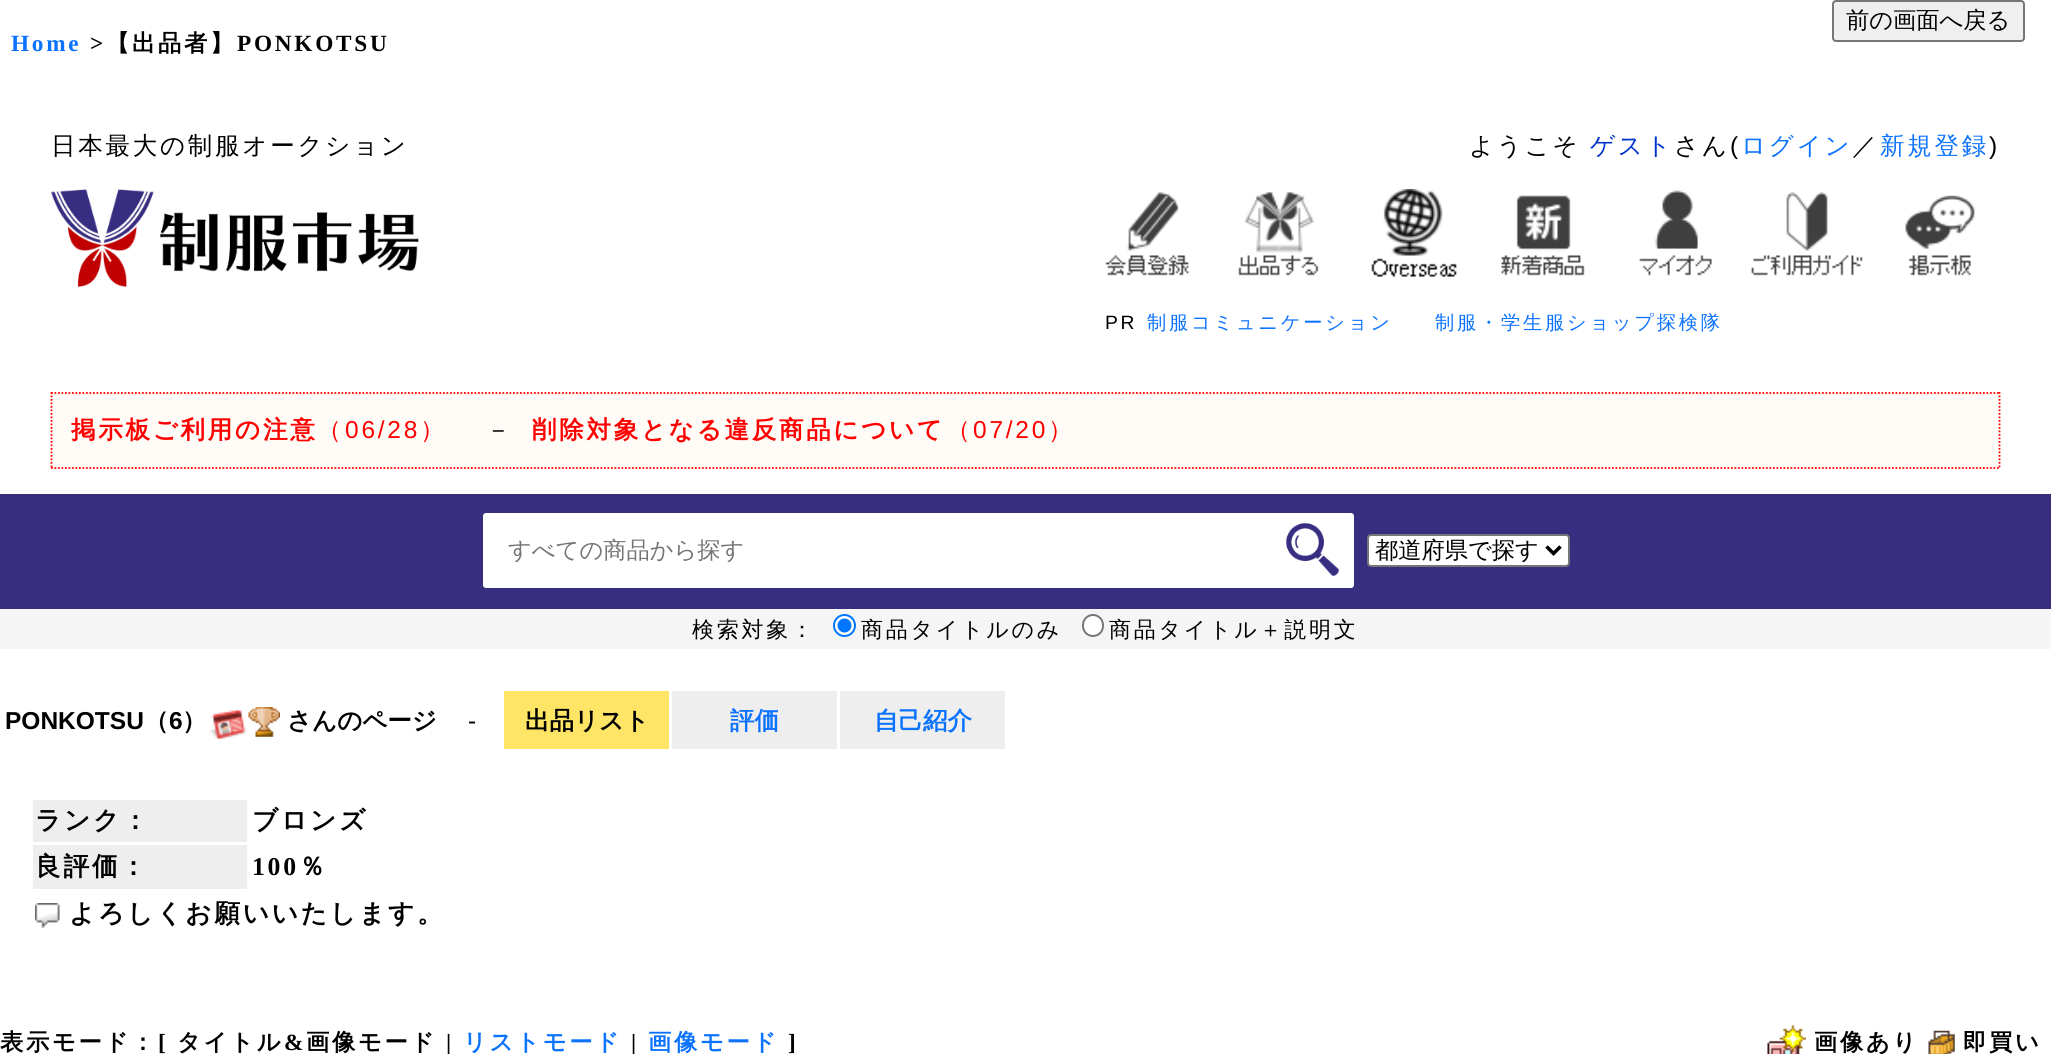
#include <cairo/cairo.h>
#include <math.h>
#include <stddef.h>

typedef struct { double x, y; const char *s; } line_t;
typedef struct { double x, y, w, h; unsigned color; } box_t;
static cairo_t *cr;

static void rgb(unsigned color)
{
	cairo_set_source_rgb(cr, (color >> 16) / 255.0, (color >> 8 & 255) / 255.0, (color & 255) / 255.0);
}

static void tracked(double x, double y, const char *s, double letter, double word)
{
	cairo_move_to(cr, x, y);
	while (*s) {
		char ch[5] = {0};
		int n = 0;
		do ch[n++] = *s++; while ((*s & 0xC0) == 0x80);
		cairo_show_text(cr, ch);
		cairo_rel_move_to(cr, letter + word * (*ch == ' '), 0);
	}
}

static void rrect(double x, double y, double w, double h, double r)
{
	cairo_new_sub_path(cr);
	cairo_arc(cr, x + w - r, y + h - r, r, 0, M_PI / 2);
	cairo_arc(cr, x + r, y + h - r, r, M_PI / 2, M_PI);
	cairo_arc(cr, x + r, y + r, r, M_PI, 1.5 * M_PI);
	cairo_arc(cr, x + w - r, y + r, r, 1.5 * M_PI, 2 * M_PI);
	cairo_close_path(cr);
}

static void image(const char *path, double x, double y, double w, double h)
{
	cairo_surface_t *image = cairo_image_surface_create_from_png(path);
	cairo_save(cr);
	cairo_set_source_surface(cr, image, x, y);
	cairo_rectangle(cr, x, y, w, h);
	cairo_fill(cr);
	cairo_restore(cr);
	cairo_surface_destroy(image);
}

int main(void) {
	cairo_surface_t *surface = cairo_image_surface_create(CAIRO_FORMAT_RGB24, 2051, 1054);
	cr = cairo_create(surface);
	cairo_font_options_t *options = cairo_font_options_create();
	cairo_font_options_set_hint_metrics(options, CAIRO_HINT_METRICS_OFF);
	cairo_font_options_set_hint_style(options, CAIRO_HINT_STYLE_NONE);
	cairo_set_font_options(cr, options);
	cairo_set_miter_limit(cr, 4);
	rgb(0xffffff);
	cairo_paint(cr);
	rgb(0xefefef);
	rrect(1833, 1, 191, 40, 3);
	cairo_fill_preserve(cr);
	rgb(0x767676);
	cairo_stroke(cr);
	rgb(0xeeeeee);
	cairo_rectangle(cr, 33, 800, 214, 42);
	cairo_fill(cr);
	cairo_rectangle(cr, 33, 845, 214, 44);
	cairo_fill(cr);
	image("img/1.png", 35, 903, 25, 25);
	image("img/2.png", 1767, 1025, 39, 29);
	image("img/3.png", 1928, 1030, 27, 24);
	image("img/4.png", 51, 189, 368, 98);
	image("img/5.png", 1105, 192, 84, 84);
	image("img/6.png", 1238, 192, 81, 84);
	image("img/7.png", 1371, 189, 86, 88);
	image("img/8.png", 1501, 195, 84, 81);
	image("img/9.png", 1639, 190, 73, 86);
	image("img/10.png", 1751, 192, 112, 84);
	image("img/11.png", 1905, 195, 70, 81);
	rgb(0xfffcf7);
	cairo_rectangle(cr, 51, 392, 1949, 77);
	cairo_fill(cr);
	cairo_new_path(cr);
	cairo_move_to(cr, 51, 393);
	cairo_line_to(cr, 2000, 393);
	rgb(0xff0000);
	cairo_set_line_width(cr, 1.8);
	cairo_set_dash(cr, (double[]){1.75, 1.75}, 2, 0);
	cairo_stroke(cr);
	cairo_new_path(cr);
	cairo_move_to(cr, 1999.5, 392);
	cairo_line_to(cr, 1999.5, 469);
	cairo_stroke(cr);
	cairo_new_path(cr);
	cairo_move_to(cr, 51, 468);
	cairo_line_to(cr, 2000, 468);
	cairo_stroke(cr);
	cairo_new_path(cr);
	cairo_move_to(cr, 51.5, 392);
	cairo_line_to(cr, 51.5, 469);
	cairo_stroke(cr);
	rgb(0x382e81);
	cairo_rectangle(cr, 0, 494, 2051, 115);
	cairo_fill(cr);
	rgb(0xffffff);
	rrect(482, 512, 873, 77, 4);
	cairo_fill_preserve(cr);
	rgb(0x382e81);
	cairo_set_line_width(cr, 2);
	cairo_set_dash(cr, NULL, 0, 0);
	cairo_stroke(cr);
	image("img/12.png", 1286, 523, 53, 53);
	rgb(0xffffff);
	rrect(1368, 535, 201, 31, 3);
	cairo_fill_preserve(cr);
	rgb(0x767676);
	cairo_stroke(cr);
	cairo_new_path(cr);
	cairo_move_to(cr, 1546.5, 546.5);
	cairo_line_to(cr, 1553.5, 553.5);
	cairo_line_to(cr, 1560.5, 546.5);
	rgb(0x000000);
	cairo_set_line_width(cr, 3.5);
	cairo_stroke(cr);
	rgb(0xf5f5f5);
	cairo_rectangle(cr, 0, 609, 2051, 40);
	cairo_fill(cr);
	rgb(0xffffff);
	cairo_arc(cr, 844.5, 625.5, 10.5, 0, 2 * M_PI);
	cairo_fill_preserve(cr);
	rgb(0x0075ff);
	cairo_set_line_width(cr, 2);
	cairo_stroke(cr);
	cairo_arc(cr, 844.5, 625.5, 7, 0, 2 * M_PI);
	cairo_fill(cr);
	rgb(0xffffff);
	rrect(1083, 615, 20, 21, 10);
	cairo_fill_preserve(cr);
	rgb(0x767676);
	cairo_stroke(cr);
	image("img/13.png", 209, 710, 38, 30);
	image("img/14.png", 248, 707, 32, 30);
	{
		static const box_t items[] = {
			{504, 691, 165, 58, 0xffe566},
			{672, 691, 165, 58, 0xeeeeee},
			{840, 691, 165, 58, 0xeeeeee},
		};
		for (size_t i = 0; i < sizeof items / sizeof *items; i++) {
			rgb(items[i].color);
			cairo_rectangle(cr, items[i].x, items[i].y, items[i].w, items[i].h);
			cairo_fill(cr);
		}
	}
	cairo_select_font_face(cr, "WenQuanYi Zen Hei Medium", CAIRO_FONT_SLANT_NORMAL, CAIRO_FONT_WEIGHT_NORMAL);
	cairo_set_font_size(cr, 23.25);
	rgb(0x000000);
	cairo_move_to(cr, 1846, 28);
	cairo_show_text(cr, "前の画面へ戻る");
	cairo_select_font_face(cr, "WenQuanYi Zen Hei", CAIRO_FONT_SLANT_NORMAL, CAIRO_FONT_WEIGHT_BOLD);
	cairo_set_font_size(cr, 25.7);
	{
		static const line_t items[] = {
			{35, 829, "ランク："},
			{252, 829, "ブロンズ"},
			{35, 875, "良評価："},
		};
		for (size_t i = 0; i < sizeof items / sizeof *items; i++) {
			tracked(items[i].x, items[i].y, items[i].s, 2.75, 0);
		}
	}
	cairo_select_font_face(cr, "Liberation Serif", CAIRO_FONT_SLANT_NORMAL, CAIRO_FONT_WEIGHT_BOLD);
	tracked(252, 875, "100", 2.75, 0);
	cairo_select_font_face(cr, "WenQuanYi Zen Hei", CAIRO_FONT_SLANT_NORMAL, CAIRO_FONT_WEIGHT_BOLD);
	tracked(299, 875, "％", 2.75, 0);
	tracked(69, 922, "よろしくお願いいたします。", 2.75, 0);
	cairo_set_font_size(cr, 23.25);
	tracked(0, 1050, "表示モード：", 2.75, 0);
	cairo_select_font_face(cr, "Liberation Serif", CAIRO_FONT_SLANT_NORMAL, CAIRO_FONT_WEIGHT_BOLD);
	tracked(158, 1050, "[", 2.75, 0);
	cairo_select_font_face(cr, "WenQuanYi Zen Hei", CAIRO_FONT_SLANT_NORMAL, CAIRO_FONT_WEIGHT_BOLD);
	tracked(177, 1050, "タイトル", 2.75, 0);
	cairo_select_font_face(cr, "Liberation Serif", CAIRO_FONT_SLANT_NORMAL, CAIRO_FONT_WEIGHT_BOLD);
	tracked(284, 1050, "&", 2.75, 0);
	cairo_select_font_face(cr, "WenQuanYi Zen Hei", CAIRO_FONT_SLANT_NORMAL, CAIRO_FONT_WEIGHT_BOLD);
	tracked(306, 1050, "画像モード", 2.75, 0);
	cairo_select_font_face(cr, "Liberation Serif", CAIRO_FONT_SLANT_NORMAL, CAIRO_FONT_WEIGHT_BOLD);
	tracked(446, 1050, "|", 2.75, 0);
	cairo_select_font_face(cr, "WenQuanYi Zen Hei", CAIRO_FONT_SLANT_NORMAL, CAIRO_FONT_WEIGHT_BOLD);
	rgb(0x0c73ff);
	tracked(463, 1050, "リストモード", 2.75, 0);
	cairo_select_font_face(cr, "Liberation Serif", CAIRO_FONT_SLANT_NORMAL, CAIRO_FONT_WEIGHT_BOLD);
	rgb(0x000000);
	tracked(631, 1050, "|", 2.75, 0);
	cairo_select_font_face(cr, "WenQuanYi Zen Hei", CAIRO_FONT_SLANT_NORMAL, CAIRO_FONT_WEIGHT_BOLD);
	rgb(0x0c73ff);
	tracked(648, 1050, "画像モード", 2.75, 0);
	cairo_select_font_face(cr, "Liberation Serif", CAIRO_FONT_SLANT_NORMAL, CAIRO_FONT_WEIGHT_BOLD);
	rgb(0x000000);
	tracked(788, 1050, "]", 2.75, 0);
	cairo_select_font_face(cr, "WenQuanYi Zen Hei", CAIRO_FONT_SLANT_NORMAL, CAIRO_FONT_WEIGHT_BOLD);
	tracked(1814, 1050, "画像あり", 2.75, 0);
	tracked(1963, 1050, "即買い", 2.75, 0);
	cairo_select_font_face(cr, "WenQuanYi Zen Hei Medium", CAIRO_FONT_SLANT_NORMAL, CAIRO_FONT_WEIGHT_NORMAL);
	cairo_set_font_size(cr, 24.5);
	tracked(51, 154, "日本最大の制服オークション", 2.75, 0);
	tracked(1469, 154, "ようこそ", 2.75, 0);
	rgb(0x0033cc);
	tracked(1590, 154, "ゲスト", 2.75, 0);
	rgb(0x000000);
	tracked(1674, 154, "さん", 2.75, 0);
	cairo_select_font_face(cr, "Liberation Sans", CAIRO_FONT_SLANT_NORMAL, CAIRO_FONT_WEIGHT_NORMAL);
	tracked(1730, 154, "(", 2.75, 0);
	cairo_select_font_face(cr, "WenQuanYi Zen Hei Medium", CAIRO_FONT_SLANT_NORMAL, CAIRO_FONT_WEIGHT_NORMAL);
	rgb(0x0c73ff);
	tracked(1741, 154, "ログイン", 2.75, 0);
	rgb(0x000000);
	tracked(1852, 154, "／", 2.75, 0);
	rgb(0x0c73ff);
	tracked(1880, 154, "新規登録", 2.75, 0);
	cairo_select_font_face(cr, "Liberation Sans", CAIRO_FONT_SLANT_NORMAL, CAIRO_FONT_WEIGHT_NORMAL);
	rgb(0x000000);
	tracked(1989, 154, ")", 2.75, 0);
	cairo_set_font_size(cr, 19.25);
	tracked(1105, 329, "PR", 2.75, 0);
	cairo_select_font_face(cr, "WenQuanYi Zen Hei Medium", CAIRO_FONT_SLANT_NORMAL, CAIRO_FONT_WEIGHT_NORMAL);
	rgb(0x0c73ff);
	tracked(1147, 329, "制服コミュニケーション", 2.75, 0);
	tracked(1435, 329, "制服・学生服ショップ探検隊", 2.75, 0);
	cairo_select_font_face(cr, "WenQuanYi Zen Hei", CAIRO_FONT_SLANT_NORMAL, CAIRO_FONT_WEIGHT_BOLD);
	cairo_set_font_size(cr, 24.5);
	rgb(0xff0000);
	tracked(71, 438, "掲示板ご利用の注意", 2.75, 0);
	cairo_select_font_face(cr, "WenQuanYi Zen Hei Medium", CAIRO_FONT_SLANT_NORMAL, CAIRO_FONT_WEIGHT_NORMAL);
	tracked(317, 438, "（", 2.75, 0);
	cairo_select_font_face(cr, "Liberation Sans", CAIRO_FONT_SLANT_NORMAL, CAIRO_FONT_WEIGHT_NORMAL);
	tracked(345, 438, "06/28", 2.75, 0);
	cairo_select_font_face(cr, "WenQuanYi Zen Hei Medium", CAIRO_FONT_SLANT_NORMAL, CAIRO_FONT_WEIGHT_NORMAL);
	tracked(420, 438, "）", 2.75, 0);
	rgb(0x000000);
	tracked(486, 438, "－", 2.75, 0);
	cairo_select_font_face(cr, "WenQuanYi Zen Hei", CAIRO_FONT_SLANT_NORMAL, CAIRO_FONT_WEIGHT_BOLD);
	rgb(0xff0000);
	tracked(532, 438, "削除対象となる違反商品について", 2.75, 0);
	cairo_select_font_face(cr, "WenQuanYi Zen Hei Medium", CAIRO_FONT_SLANT_NORMAL, CAIRO_FONT_WEIGHT_NORMAL);
	tracked(946, 438, "（", 2.75, 0);
	cairo_select_font_face(cr, "Liberation Sans", CAIRO_FONT_SLANT_NORMAL, CAIRO_FONT_WEIGHT_NORMAL);
	tracked(973, 438, "07/20", 2.75, 0);
	cairo_select_font_face(cr, "WenQuanYi Zen Hei Medium", CAIRO_FONT_SLANT_NORMAL, CAIRO_FONT_WEIGHT_NORMAL);
	tracked(1048, 438, "）", 2.75, 0);
	cairo_set_font_size(cr, 23.25);
	rgb(0x757575);
	cairo_move_to(cr, 508, 558);
	cairo_show_text(cr, "すべての商品から探す");
	rgb(0x000000);
	cairo_move_to(cr, 1375, 558);
	cairo_show_text(cr, "都道府県で探す");
	cairo_set_font_size(cr, 22);
	{
		static const line_t items[] = {
			{692, 637, "検索対象："},
			{861, 637, "商品タイトルのみ"},
			{1109, 637, "商品タイトル＋説明文"},
		};
		for (size_t i = 0; i < sizeof items / sizeof *items; i++) {
			tracked(items[i].x, items[i].y, items[i].s, 2.75, 0);
		}
	}
	cairo_select_font_face(cr, "Liberation Sans", CAIRO_FONT_SLANT_NORMAL, CAIRO_FONT_WEIGHT_BOLD);
	cairo_set_font_size(cr, 24.5);
	cairo_move_to(cr, 5, 729);
	cairo_show_text(cr, "PONKOTSU");
	cairo_select_font_face(cr, "WenQuanYi Zen Hei", CAIRO_FONT_SLANT_NORMAL, CAIRO_FONT_WEIGHT_BOLD);
	cairo_move_to(cr, 144, 729);
	cairo_show_text(cr, "（");
	cairo_select_font_face(cr, "Liberation Sans", CAIRO_FONT_SLANT_NORMAL, CAIRO_FONT_WEIGHT_BOLD);
	cairo_move_to(cr, 169, 729);
	cairo_show_text(cr, "6");
	cairo_select_font_face(cr, "WenQuanYi Zen Hei", CAIRO_FONT_SLANT_NORMAL, CAIRO_FONT_WEIGHT_BOLD);
	cairo_move_to(cr, 182, 729);
	cairo_show_text(cr, "）");
	cairo_move_to(cr, 287, 729);
	cairo_show_text(cr, "さんのページ");
	cairo_select_font_face(cr, "Liberation Sans", CAIRO_FONT_SLANT_NORMAL, CAIRO_FONT_WEIGHT_NORMAL);
	cairo_move_to(cr, 468, 729);
	cairo_show_text(cr, "-");
	cairo_select_font_face(cr, "WenQuanYi Zen Hei", CAIRO_FONT_SLANT_NORMAL, CAIRO_FONT_WEIGHT_BOLD);
	cairo_move_to(cr, 525, 729);
	cairo_show_text(cr, "出品リスト");
	rgb(0x0c73ff);
	cairo_move_to(cr, 730, 729);
	cairo_show_text(cr, "評価");
	cairo_move_to(cr, 874, 729);
	cairo_show_text(cr, "自己紹介");
	cairo_select_font_face(cr, "Liberation Serif", CAIRO_FONT_SLANT_NORMAL, CAIRO_FONT_WEIGHT_BOLD);
	cairo_set_font_size(cr, 23.25);
	tracked(11, 51, "Home", 2.75, 0);
	rgb(0x000000);
	tracked(90, 51, ">", 2.75, 0);
	cairo_select_font_face(cr, "WenQuanYi Zen Hei", CAIRO_FONT_SLANT_NORMAL, CAIRO_FONT_WEIGHT_BOLD);
	tracked(106, 51, "【出品者】", 2.75, 0);
	cairo_select_font_face(cr, "Liberation Serif", CAIRO_FONT_SLANT_NORMAL, CAIRO_FONT_WEIGHT_BOLD);
	tracked(237, 51, "PONKOTSU", 2.75, 0);
	cairo_surface_write_to_png(surface, "page.png");
	cairo_font_options_destroy(options);
	cairo_destroy(cr);
	cairo_surface_destroy(surface);
	return 0;
}
